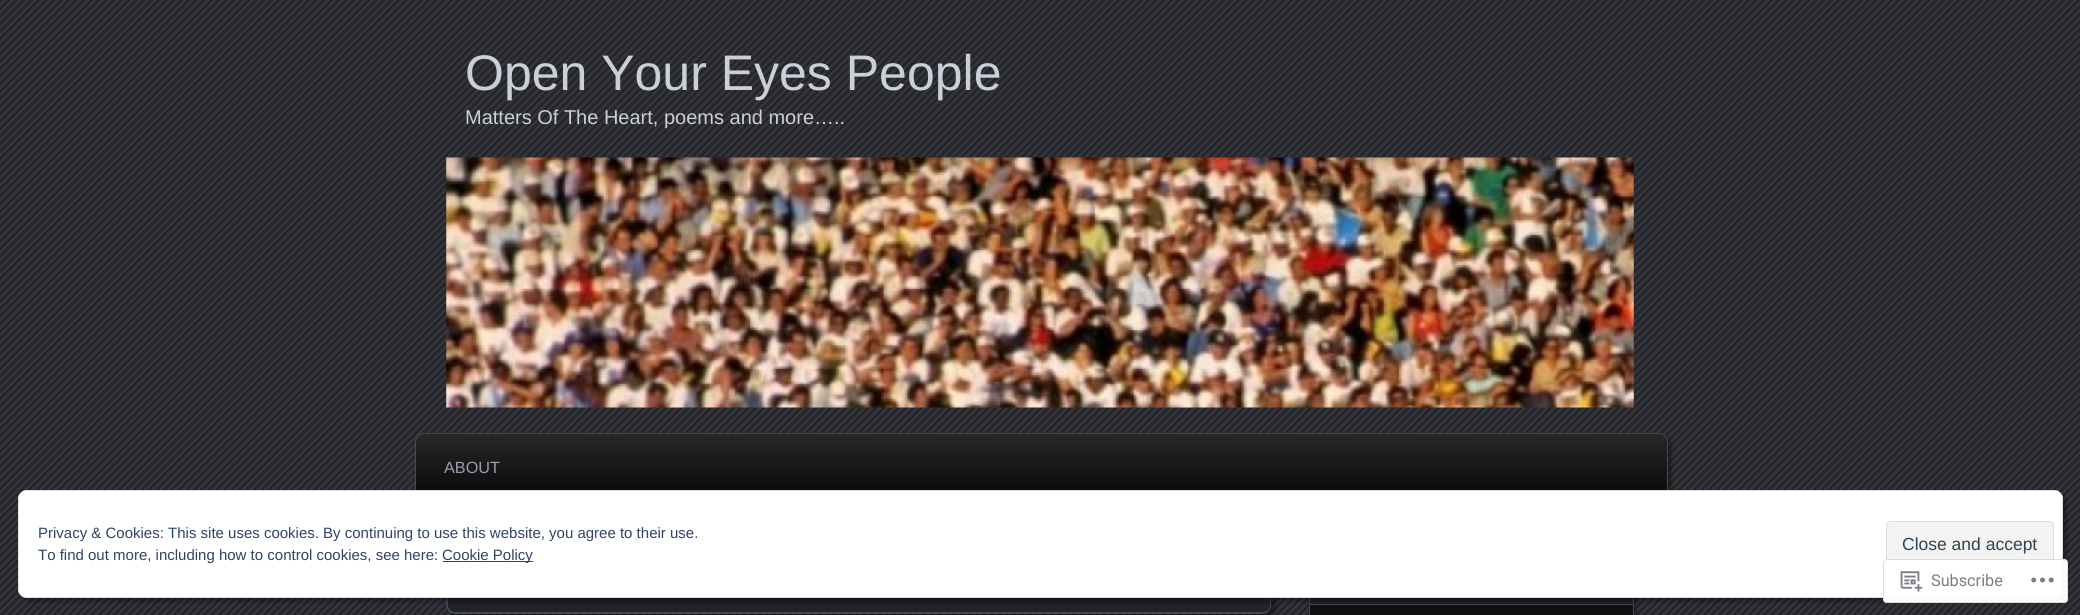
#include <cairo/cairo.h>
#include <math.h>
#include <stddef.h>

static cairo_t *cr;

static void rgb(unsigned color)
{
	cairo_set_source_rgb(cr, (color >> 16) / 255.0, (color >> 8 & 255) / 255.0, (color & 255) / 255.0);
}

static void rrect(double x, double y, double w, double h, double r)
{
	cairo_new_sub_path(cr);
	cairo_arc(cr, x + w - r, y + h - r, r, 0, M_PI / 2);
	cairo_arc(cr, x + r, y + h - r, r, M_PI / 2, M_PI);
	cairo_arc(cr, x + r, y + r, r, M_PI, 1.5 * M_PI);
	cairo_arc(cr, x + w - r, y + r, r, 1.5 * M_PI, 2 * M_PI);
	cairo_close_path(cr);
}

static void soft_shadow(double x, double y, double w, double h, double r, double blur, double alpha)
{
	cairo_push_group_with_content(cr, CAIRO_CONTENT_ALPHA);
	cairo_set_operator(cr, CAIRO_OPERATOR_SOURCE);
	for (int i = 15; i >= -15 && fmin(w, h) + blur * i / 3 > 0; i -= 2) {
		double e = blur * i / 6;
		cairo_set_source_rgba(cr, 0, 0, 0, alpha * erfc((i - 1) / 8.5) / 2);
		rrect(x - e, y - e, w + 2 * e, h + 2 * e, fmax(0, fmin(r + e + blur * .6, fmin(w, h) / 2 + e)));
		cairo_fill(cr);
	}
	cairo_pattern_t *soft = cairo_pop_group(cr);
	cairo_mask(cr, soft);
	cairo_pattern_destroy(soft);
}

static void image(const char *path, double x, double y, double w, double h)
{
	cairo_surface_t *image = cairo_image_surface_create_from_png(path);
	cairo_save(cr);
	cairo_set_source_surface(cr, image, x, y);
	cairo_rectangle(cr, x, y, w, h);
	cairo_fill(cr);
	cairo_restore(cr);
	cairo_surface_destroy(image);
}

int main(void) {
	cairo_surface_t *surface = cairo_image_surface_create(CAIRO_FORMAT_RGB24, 2080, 615);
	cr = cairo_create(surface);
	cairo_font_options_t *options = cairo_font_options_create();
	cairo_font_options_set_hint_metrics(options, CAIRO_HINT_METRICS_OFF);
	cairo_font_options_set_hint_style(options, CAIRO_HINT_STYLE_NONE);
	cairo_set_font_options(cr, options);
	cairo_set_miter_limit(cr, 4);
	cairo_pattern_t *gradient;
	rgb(0x202228);
	cairo_paint(cr);
	image("img/1.png", 0, 0, 2080, 615);
	image("img/2.png", 446, 157, 1188, 251);
	rgb(0x000000);
	soft_shadow(419, 436, 1252, 70, 9, 2.5, 0.45);
	cairo_save(cr);
	rrect(415, 433, 1253, 70, 9);
	cairo_clip(cr);
	gradient = cairo_pattern_create_linear(1041, 434, 1041, 501);
	cairo_pattern_add_color_stop_rgba(gradient, 0.01, 0.153, 0.153, 0.153, 1);
	cairo_pattern_add_color_stop_rgba(gradient, 1, 0.027, 0.027, 0.027, 1);
	cairo_set_source(cr, gradient);
	cairo_pattern_destroy(gradient);
	cairo_rectangle(cr, 415, 434, 1253, 56);
	cairo_fill(cr);
	cairo_restore(cr);
	rrect(415.5, 433.5, 1252, 69, 8.5);
	rgb(0x444855);
	cairo_set_line_width(cr, 1);
	cairo_stroke(cr);
	rgb(0x000000);
	soft_shadow(450, 506, 825, 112, 9, 2.5, 0.45);
	rgb(0x202228);
	cairo_new_path(cr);
	cairo_move_to(cr, 448, 503);
	cairo_line_to(cr, 1270, 503);
	cairo_line_to(cr, 1270, 605);
	cairo_curve_to(cr, 1270, 609.5, 1266.5, 613, 1262, 613);
	cairo_line_to(cr, 456, 613);
	cairo_curve_to(cr, 451.5, 613, 448, 609.5, 448, 605);
	cairo_close_path(cr);
	cairo_fill(cr);
	rgb(0x444855);
	cairo_set_fill_rule(cr, CAIRO_FILL_RULE_EVEN_ODD);
	cairo_new_path(cr);
	cairo_move_to(cr, 446, 502);
	cairo_line_to(cr, 1271, 502);
	cairo_line_to(cr, 1271, 605);
	cairo_curve_to(cr, 1271, 610, 1267, 614, 1262, 614);
	cairo_line_to(cr, 455, 614);
	cairo_curve_to(cr, 450, 614, 446, 610, 446, 605);
	cairo_close_path(cr);
	cairo_move_to(cr, 448, 502);
	cairo_line_to(cr, 1270, 502);
	cairo_line_to(cr, 1270, 605);
	cairo_curve_to(cr, 1270, 609, 1267, 612, 1262, 612);
	cairo_line_to(cr, 455, 612);
	cairo_curve_to(cr, 451, 612, 448, 609, 448, 605);
	cairo_close_path(cr);
	cairo_fill(cr);
	rgb(0x000000);
	soft_shadow(1311, 555, 325, 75, 9, 2, 0.45);
	rgb(0x111111);
	cairo_rectangle(cr, 1310, 605, 323, 10);
	cairo_fill(cr);
	cairo_rectangle(cr, 1309.5, 553.5, 324, 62);
	rgb(0x444855);
	cairo_stroke(cr);
	rgb(0x202228);
	cairo_rectangle(cr, 1310, 598, 323, 6);
	cairo_fill(cr);
	rgb(0x444855);
	cairo_rectangle(cr, 1310, 604, 323, 1);
	cairo_fill(cr);
	rgb(0x000000);
	soft_shadow(21, 494, 2045, 107, 9, 2.5, 0.45);
	rgb(0xffffff);
	rrect(18, 490, 2045, 108, 9);
	cairo_fill(cr);
	rgb(0xdedede);
	cairo_new_path(cr);
	cairo_move_to(cr, 18, 499);
	cairo_line_to(cr, 18, 589);
	cairo_curve_to(cr, 18, 590, 18, 592, 19, 593);
	cairo_line_to(cr, 19, 495);
	cairo_close_path(cr);
	cairo_move_to(cr, 27, 490);
	cairo_line_to(cr, 23, 491);
	cairo_line_to(cr, 2058, 491);
	cairo_line_to(cr, 2054, 490);
	cairo_close_path(cr);
	cairo_move_to(cr, 2063, 499);
	cairo_line_to(cr, 2062, 495);
	cairo_line_to(cr, 2062, 593);
	cairo_curve_to(cr, 2063, 592, 2063, 590, 2063, 589);
	cairo_close_path(cr);
	cairo_move_to(cr, 2054, 598);
	cairo_line_to(cr, 2058, 597);
	cairo_line_to(cr, 23, 597);
	cairo_line_to(cr, 27, 598);
	cairo_close_path(cr);
	cairo_fill(cr);
	rgb(0xf3f3f3);
	rrect(1886.5, 521.5, 167, 44, 3.5);
	cairo_fill_preserve(cr);
	rgb(0xdedede);
	cairo_stroke(cr);
	rgb(0x2e4467);
	cairo_rectangle(cr, 443, 561, 90, 1);
	cairo_fill(cr);
	cairo_set_source_rgba(cr, 1, 1, 1, 0.98);
	rrect(1883, 559, 185, 44, 4);
	cairo_fill(cr);
	rrect(1883.5, 559.5, 184, 43, 3.5);
	cairo_set_source_rgba(cr, 0.863, 0.863, 0.871, 0.98);
	cairo_stroke(cr);
	image("img/3.png", 1900, 571, 23, 21);
	image("img/4.png", 2031, 577, 23, 6);
	cairo_select_font_face(cr, "Liberation Sans", CAIRO_FONT_SLANT_NORMAL, CAIRO_FONT_WEIGHT_NORMAL);
	cairo_set_font_size(cr, 50);
	rgb(0xcccfd7);
	cairo_move_to(cr, 465, 90);
	cairo_show_text(cr, "Open Your Eyes People");
	cairo_set_font_size(cr, 20);
	cairo_move_to(cr, 465, 124);
	cairo_show_text(cr, "Matters Of The Heart, poems and more…..");
	cairo_set_font_size(cr, 16.25);
	rgb(0x989eae);
	cairo_move_to(cr, 444, 473);
	cairo_show_text(cr, "ABOUT");
	cairo_set_font_size(cr, 15);
	rgb(0x2e4467);
	cairo_move_to(cr, 38, 538);
	cairo_show_text(cr, "Privacy & Cookies: This site uses cookies. By continuing to use this website, you agree to their use.");
	cairo_set_font_size(cr, 17.5);
	rgb(0x2e4453);
	cairo_move_to(cr, 1902, 550);
	cairo_show_text(cr, "Close and accept");
	cairo_set_font_size(cr, 15);
	rgb(0x2e4467);
	cairo_move_to(cr, 38, 560);
	cairo_show_text(cr, "To find out more, including how to control cookies, see here:");
	cairo_move_to(cr, 442, 560);
	cairo_show_text(cr, "Cookie Policy");
	cairo_select_font_face(cr, "Roboto", CAIRO_FONT_SLANT_NORMAL, CAIRO_FONT_WEIGHT_NORMAL);
	cairo_set_font_size(cr, 16.25);
	rgb(0x7b7f85);
	cairo_move_to(cr, 1931, 586);
	cairo_show_text(cr, "Subscribe");
	cairo_surface_write_to_png(surface, "page.png");
	cairo_font_options_destroy(options);
	cairo_destroy(cr);
	cairo_surface_destroy(surface);
	return 0;
}
